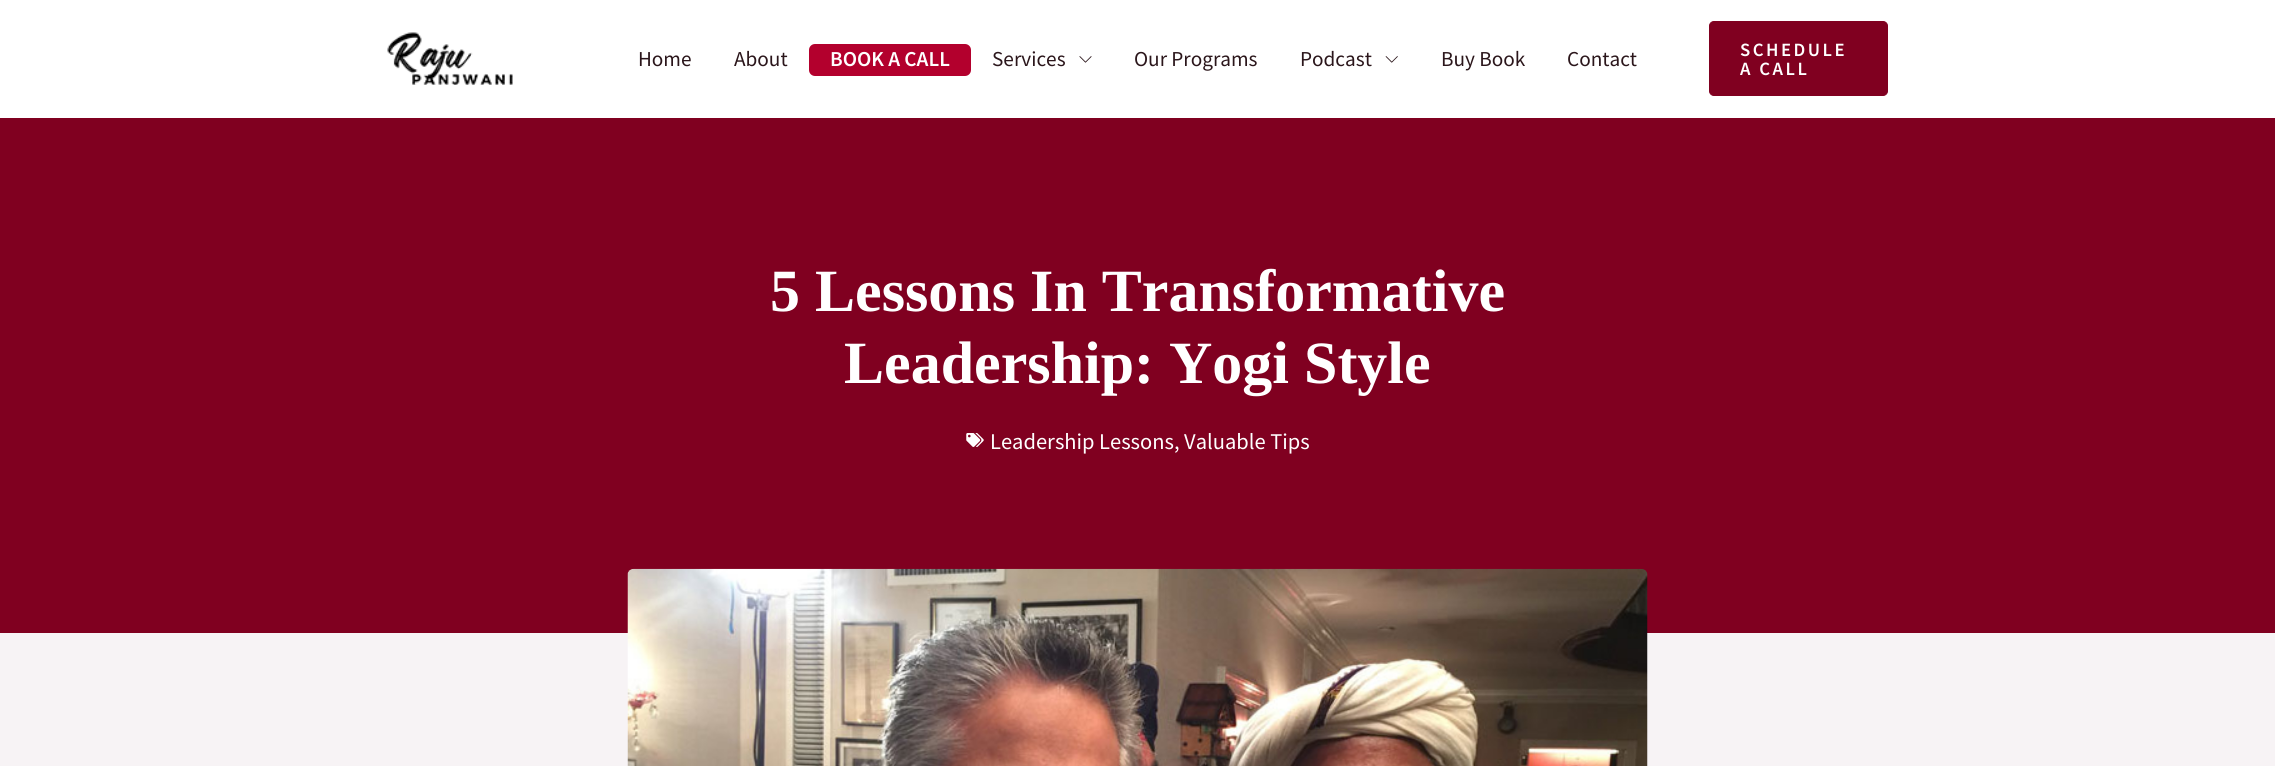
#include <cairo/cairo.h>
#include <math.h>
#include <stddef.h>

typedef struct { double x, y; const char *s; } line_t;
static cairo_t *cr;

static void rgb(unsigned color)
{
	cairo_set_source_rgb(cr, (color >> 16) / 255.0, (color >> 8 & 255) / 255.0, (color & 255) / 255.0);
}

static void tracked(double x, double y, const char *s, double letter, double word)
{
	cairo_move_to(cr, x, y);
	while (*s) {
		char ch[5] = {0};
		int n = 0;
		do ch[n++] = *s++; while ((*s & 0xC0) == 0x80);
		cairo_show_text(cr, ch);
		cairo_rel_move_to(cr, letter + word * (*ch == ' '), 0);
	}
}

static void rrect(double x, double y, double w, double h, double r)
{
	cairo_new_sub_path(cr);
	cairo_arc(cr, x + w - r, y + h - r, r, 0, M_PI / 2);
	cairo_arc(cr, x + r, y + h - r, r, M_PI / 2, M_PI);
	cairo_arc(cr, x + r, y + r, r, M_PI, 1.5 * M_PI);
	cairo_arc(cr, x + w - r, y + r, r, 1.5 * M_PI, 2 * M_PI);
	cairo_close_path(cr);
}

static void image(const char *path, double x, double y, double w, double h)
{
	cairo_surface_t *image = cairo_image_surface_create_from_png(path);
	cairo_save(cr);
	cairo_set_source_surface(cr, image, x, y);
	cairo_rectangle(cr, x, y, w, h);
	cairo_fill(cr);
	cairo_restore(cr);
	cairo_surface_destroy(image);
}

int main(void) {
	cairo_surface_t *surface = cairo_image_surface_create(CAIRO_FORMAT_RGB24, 2275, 766);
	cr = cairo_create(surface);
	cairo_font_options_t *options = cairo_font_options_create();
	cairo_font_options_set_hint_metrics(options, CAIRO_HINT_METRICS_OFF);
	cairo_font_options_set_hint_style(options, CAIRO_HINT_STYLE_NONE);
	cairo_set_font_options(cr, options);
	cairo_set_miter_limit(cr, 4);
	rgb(0xf7f3f5);
	cairo_paint(cr);
	rgb(0xffffff);
	cairo_rectangle(cr, 0, 0, 2275, 118);
	cairo_fill(cr);
	image("img/1.png", 387, 32, 126, 53);
	rgb(0xb3002d);
	rrect(809, 44, 162, 32, 6);
	cairo_fill(cr);
	image("img/2.png", 1079, 56, 13, 7);
	image("img/3.png", 1385, 56, 13, 7);
	rgb(0x800020);
	rrect(1709.5, 21.5, 178, 74, 4.5);
	cairo_fill_preserve(cr);
	cairo_set_line_width(cr, 1);
	cairo_stroke(cr);
	cairo_rectangle(cr, 0, 118, 2275, 515);
	cairo_fill(cr);
	image("img/4.png", 966, 433, 18, 14);
	image("img/5.png", 627, 568, 1021, 198);
	cairo_select_font_face(cr, "Source Sans Pro", CAIRO_FONT_SLANT_NORMAL, CAIRO_FONT_WEIGHT_NORMAL);
	cairo_set_font_size(cr, 21.25);
	rgb(0x2b161b);
	cairo_move_to(cr, 638, 66);
	cairo_show_text(cr, "Home");
	cairo_move_to(cr, 734, 66);
	cairo_show_text(cr, "About");
	cairo_select_font_face(cr, "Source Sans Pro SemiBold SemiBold", CAIRO_FONT_SLANT_NORMAL, CAIRO_FONT_WEIGHT_NORMAL);
	rgb(0xffffff);
	cairo_move_to(cr, 830, 66);
	cairo_show_text(cr, "BOOK A CALL");
	cairo_select_font_face(cr, "Source Sans Pro", CAIRO_FONT_SLANT_NORMAL, CAIRO_FONT_WEIGHT_NORMAL);
	rgb(0x2b161b);
	{
		static const line_t items[] = {
			{992, 66, "Services"},
			{1134, 66, "Our Programs"},
			{1300, 66, "Podcast"},
			{1441, 66, "Buy Book"},
			{1567, 66, "Contact"},
		};
		for (size_t i = 0; i < sizeof items / sizeof *items; i++) {
			cairo_move_to(cr, items[i].x, items[i].y);
			cairo_show_text(cr, items[i].s);
		}
	}
	cairo_select_font_face(cr, "Source Sans Pro SemiBold SemiBold", CAIRO_FONT_SLANT_NORMAL, CAIRO_FONT_WEIGHT_NORMAL);
	cairo_set_font_size(cr, 18.75);
	rgb(0xffffff);
	tracked(1740, 56, "SCHEDULE", 2.5, 0);
	tracked(1740, 75, "A CALL", 2.5, 0);
	cairo_select_font_face(cr, "Liberation Serif", CAIRO_FONT_SLANT_NORMAL, CAIRO_FONT_WEIGHT_BOLD);
	cairo_set_font_size(cr, 60);
	cairo_move_to(cr, 770, 311);
	cairo_show_text(cr, "5 Lessons In Transformative");
	cairo_move_to(cr, 844, 383);
	cairo_show_text(cr, "Leadership: Yogi Style");
	cairo_select_font_face(cr, "Source Sans Pro", CAIRO_FONT_SLANT_NORMAL, CAIRO_FONT_WEIGHT_NORMAL);
	cairo_set_font_size(cr, 22.5);
	cairo_move_to(cr, 990, 449);
	cairo_show_text(cr, "Leadership Lessons, Valuable Tips");
	cairo_surface_write_to_png(surface, "page.png");
	cairo_font_options_destroy(options);
	cairo_destroy(cr);
	cairo_surface_destroy(surface);
	return 0;
}
